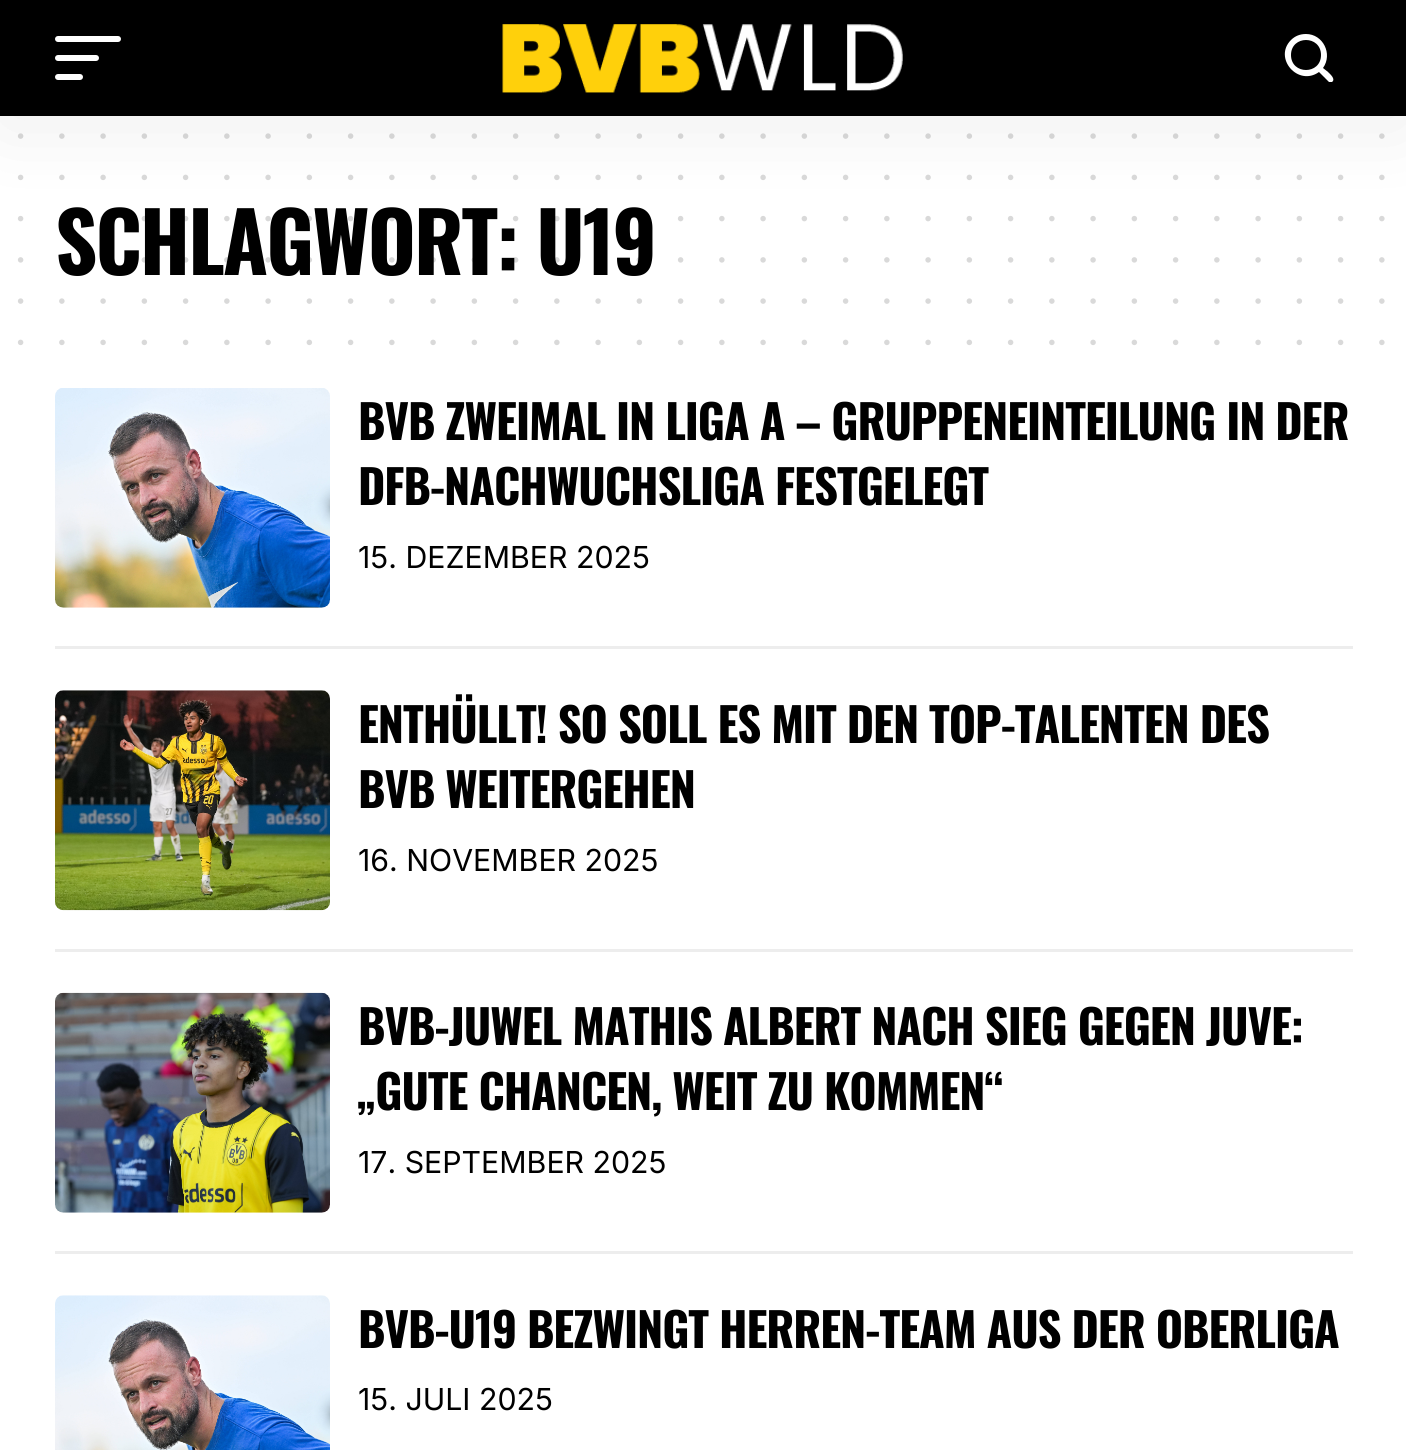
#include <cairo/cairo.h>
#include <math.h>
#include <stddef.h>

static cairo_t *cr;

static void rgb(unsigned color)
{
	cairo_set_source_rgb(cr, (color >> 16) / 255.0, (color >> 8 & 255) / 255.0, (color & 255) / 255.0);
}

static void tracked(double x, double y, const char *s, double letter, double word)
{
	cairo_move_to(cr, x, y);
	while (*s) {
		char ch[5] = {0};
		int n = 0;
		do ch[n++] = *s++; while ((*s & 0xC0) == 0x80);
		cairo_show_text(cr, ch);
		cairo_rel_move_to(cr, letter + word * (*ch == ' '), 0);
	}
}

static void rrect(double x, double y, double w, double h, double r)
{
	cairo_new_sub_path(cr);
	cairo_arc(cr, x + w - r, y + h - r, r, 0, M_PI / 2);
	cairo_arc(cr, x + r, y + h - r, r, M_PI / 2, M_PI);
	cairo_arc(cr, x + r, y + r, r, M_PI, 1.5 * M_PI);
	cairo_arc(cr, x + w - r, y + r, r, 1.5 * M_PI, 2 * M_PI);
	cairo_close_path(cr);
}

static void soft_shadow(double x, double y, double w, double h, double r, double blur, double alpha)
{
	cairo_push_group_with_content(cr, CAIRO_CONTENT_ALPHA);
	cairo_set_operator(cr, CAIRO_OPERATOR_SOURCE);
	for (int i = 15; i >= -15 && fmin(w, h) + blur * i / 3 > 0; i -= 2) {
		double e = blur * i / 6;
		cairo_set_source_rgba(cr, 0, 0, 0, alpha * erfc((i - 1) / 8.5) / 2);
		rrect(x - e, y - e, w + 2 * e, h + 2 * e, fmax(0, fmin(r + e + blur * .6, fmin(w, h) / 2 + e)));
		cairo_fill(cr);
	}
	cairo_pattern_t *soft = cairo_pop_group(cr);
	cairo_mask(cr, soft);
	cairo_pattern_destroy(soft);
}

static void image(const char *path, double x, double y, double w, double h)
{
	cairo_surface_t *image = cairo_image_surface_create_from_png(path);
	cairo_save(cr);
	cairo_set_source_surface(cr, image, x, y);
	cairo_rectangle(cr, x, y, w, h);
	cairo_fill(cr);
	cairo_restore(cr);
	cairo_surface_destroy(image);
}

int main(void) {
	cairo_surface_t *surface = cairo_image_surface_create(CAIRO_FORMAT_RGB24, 1406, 1450);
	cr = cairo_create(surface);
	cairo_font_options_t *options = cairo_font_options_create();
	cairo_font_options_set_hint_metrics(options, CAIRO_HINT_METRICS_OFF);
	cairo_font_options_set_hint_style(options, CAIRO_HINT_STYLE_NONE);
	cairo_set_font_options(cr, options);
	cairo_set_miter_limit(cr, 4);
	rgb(0xffffff);
	cairo_paint(cr);
	cairo_new_path(cr);
	cairo_move_to(cr, 20.6, 136.1);
	cairo_line_to(cr, 1382.4, 136.1);
	rgb(0xd9d9d9);
	cairo_set_line_width(cr, 5.5);
	cairo_set_line_cap(cr, CAIRO_LINE_CAP_ROUND);
	cairo_set_dash(cr, (double[]){0, 41.25}, 2, 0);
	cairo_stroke(cr);
	cairo_new_path(cr);
	cairo_move_to(cr, 20.6, 177.4);
	cairo_line_to(cr, 1382.4, 177.4);
	cairo_stroke(cr);
	cairo_new_path(cr);
	cairo_move_to(cr, 20.6, 301.1);
	cairo_line_to(cr, 1382.4, 301.1);
	cairo_stroke(cr);
	cairo_new_path(cr);
	cairo_move_to(cr, 20.6, 342.4);
	cairo_line_to(cr, 1382.4, 342.4);
	cairo_stroke(cr);
	image("img/2.png", 55, 388, 275, 220);
	rgb(0xededed);
	cairo_rectangle(cr, 55, 646, 1298, 3);
	cairo_fill(cr);
	image("img/3.png", 55, 690, 275, 221);
	cairo_rectangle(cr, 55, 949, 1298, 3);
	cairo_fill(cr);
	image("img/4.png", 55, 992, 275, 221);
	cairo_rectangle(cr, 55, 1251, 1298, 3);
	cairo_fill(cr);
	image("img/5.png", 55, 1295, 275, 155);
	cairo_select_font_face(cr, "Oswald", CAIRO_FONT_SLANT_NORMAL, CAIRO_FONT_WEIGHT_BOLD);
	cairo_set_font_size(cr, 82.5);
	rgb(0x000000);
	tracked(55, 275, "SCHLAGWORT: U19", -2, 0);
	cairo_new_path(cr);
	cairo_move_to(cr, 20.6, 218.6);
	cairo_line_to(cr, 1382.4, 218.6);
	cairo_set_source_rgba(cr, 0, 0, 0, 0.15);
	cairo_stroke(cr);
	rgb(0x000000);
	soft_shadow(0, 11, 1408, 116, 0, 41, 0.07);
	rgb(0x000000);
	cairo_rectangle(cr, 0, 0, 1406, 116);
	cairo_fill(cr);
	rgb(0xffffff);
	cairo_set_fill_rule(cr, CAIRO_FILL_RULE_EVEN_ODD);
	cairo_new_path(cr);
	cairo_move_to(cr, 1291, 55);
	cairo_curve_to(cr, 1291, 35, 1321, 35, 1321, 55);
	cairo_curve_to(cr, 1321, 75, 1291, 75, 1291, 55);
	cairo_close_path(cr);
	cairo_move_to(cr, 1306, 34);
	cairo_curve_to(cr, 1300, 34, 1295, 36, 1291, 40);
	cairo_curve_to(cr, 1273, 58, 1298, 87, 1319, 72);
	cairo_line_to(cr, 1329, 82);
	cairo_line_to(cr, 1332, 82);
	cairo_curve_to(cr, 1336, 79, 1330, 74, 1328, 72);
	cairo_line_to(cr, 1323, 68);
	cairo_curve_to(cr, 1333, 54, 1323, 34, 1306, 34);
	cairo_close_path(cr);
	cairo_fill(cr);
	rrect(55, 74, 28, 6, 3);
	cairo_fill(cr);
	rrect(55, 55, 44, 6, 3);
	cairo_fill(cr);
	rrect(55, 36, 66, 6, 3);
	cairo_fill(cr);
	image("img/1.png", 502, 24, 401, 69);
	cairo_new_path(cr);
	cairo_move_to(cr, 20.6, 259.9);
	cairo_line_to(cr, 1382.4, 259.9);
	cairo_set_source_rgba(cr, 0, 0, 0, 0.15);
	cairo_stroke(cr);
	cairo_set_font_size(cr, 46.75);
	rgb(0x000000);
	tracked(358, 440, "BVB ZWEIMAL IN LIGA A – GRUPPENEINTEILUNG IN DER", -1.05, 0);
	tracked(358, 505, "DFB-NACHWUCHSLIGA FESTGELEGT", -1.05, 0);
	cairo_select_font_face(cr, "Inter", CAIRO_FONT_SLANT_NORMAL, CAIRO_FONT_WEIGHT_NORMAL);
	cairo_set_font_size(cr, 30.25);
	cairo_move_to(cr, 358, 568);
	cairo_show_text(cr, "15. DEZEMBER 2025");
	cairo_select_font_face(cr, "Oswald", CAIRO_FONT_SLANT_NORMAL, CAIRO_FONT_WEIGHT_BOLD);
	cairo_set_font_size(cr, 46.75);
	tracked(358, 743, "ENTHÜLLT! SO SOLL ES MIT DEN TOP-TALENTEN DES", -1.05, 0);
	tracked(358, 808, "BVB WEITERGEHEN", -1.05, 0);
	cairo_select_font_face(cr, "Inter", CAIRO_FONT_SLANT_NORMAL, CAIRO_FONT_WEIGHT_NORMAL);
	cairo_set_font_size(cr, 30.25);
	cairo_move_to(cr, 358, 871);
	cairo_show_text(cr, "16. NOVEMBER 2025");
	cairo_select_font_face(cr, "Oswald", CAIRO_FONT_SLANT_NORMAL, CAIRO_FONT_WEIGHT_BOLD);
	cairo_set_font_size(cr, 46.75);
	tracked(358, 1045, "BVB-JUWEL MATHIS ALBERT NACH SIEG GEGEN JUVE:", -1.05, 0);
	tracked(358, 1110, "„GUTE CHANCEN, WEIT ZU KOMMEN“", -1.05, 0);
	cairo_select_font_face(cr, "Inter", CAIRO_FONT_SLANT_NORMAL, CAIRO_FONT_WEIGHT_NORMAL);
	cairo_set_font_size(cr, 30.25);
	cairo_move_to(cr, 358, 1173);
	cairo_show_text(cr, "17. SEPTEMBER 2025");
	cairo_select_font_face(cr, "Oswald", CAIRO_FONT_SLANT_NORMAL, CAIRO_FONT_WEIGHT_BOLD);
	cairo_set_font_size(cr, 46.75);
	tracked(358, 1348, "BVB-U19 BEZWINGT HERREN-TEAM AUS DER OBERLIGA", -1.05, 0);
	cairo_select_font_face(cr, "Inter", CAIRO_FONT_SLANT_NORMAL, CAIRO_FONT_WEIGHT_NORMAL);
	cairo_set_font_size(cr, 30.25);
	cairo_move_to(cr, 358, 1410);
	cairo_show_text(cr, "15. JULI 2025");
	cairo_surface_write_to_png(surface, "page.png");
	cairo_font_options_destroy(options);
	cairo_destroy(cr);
	cairo_surface_destroy(surface);
	return 0;
}
